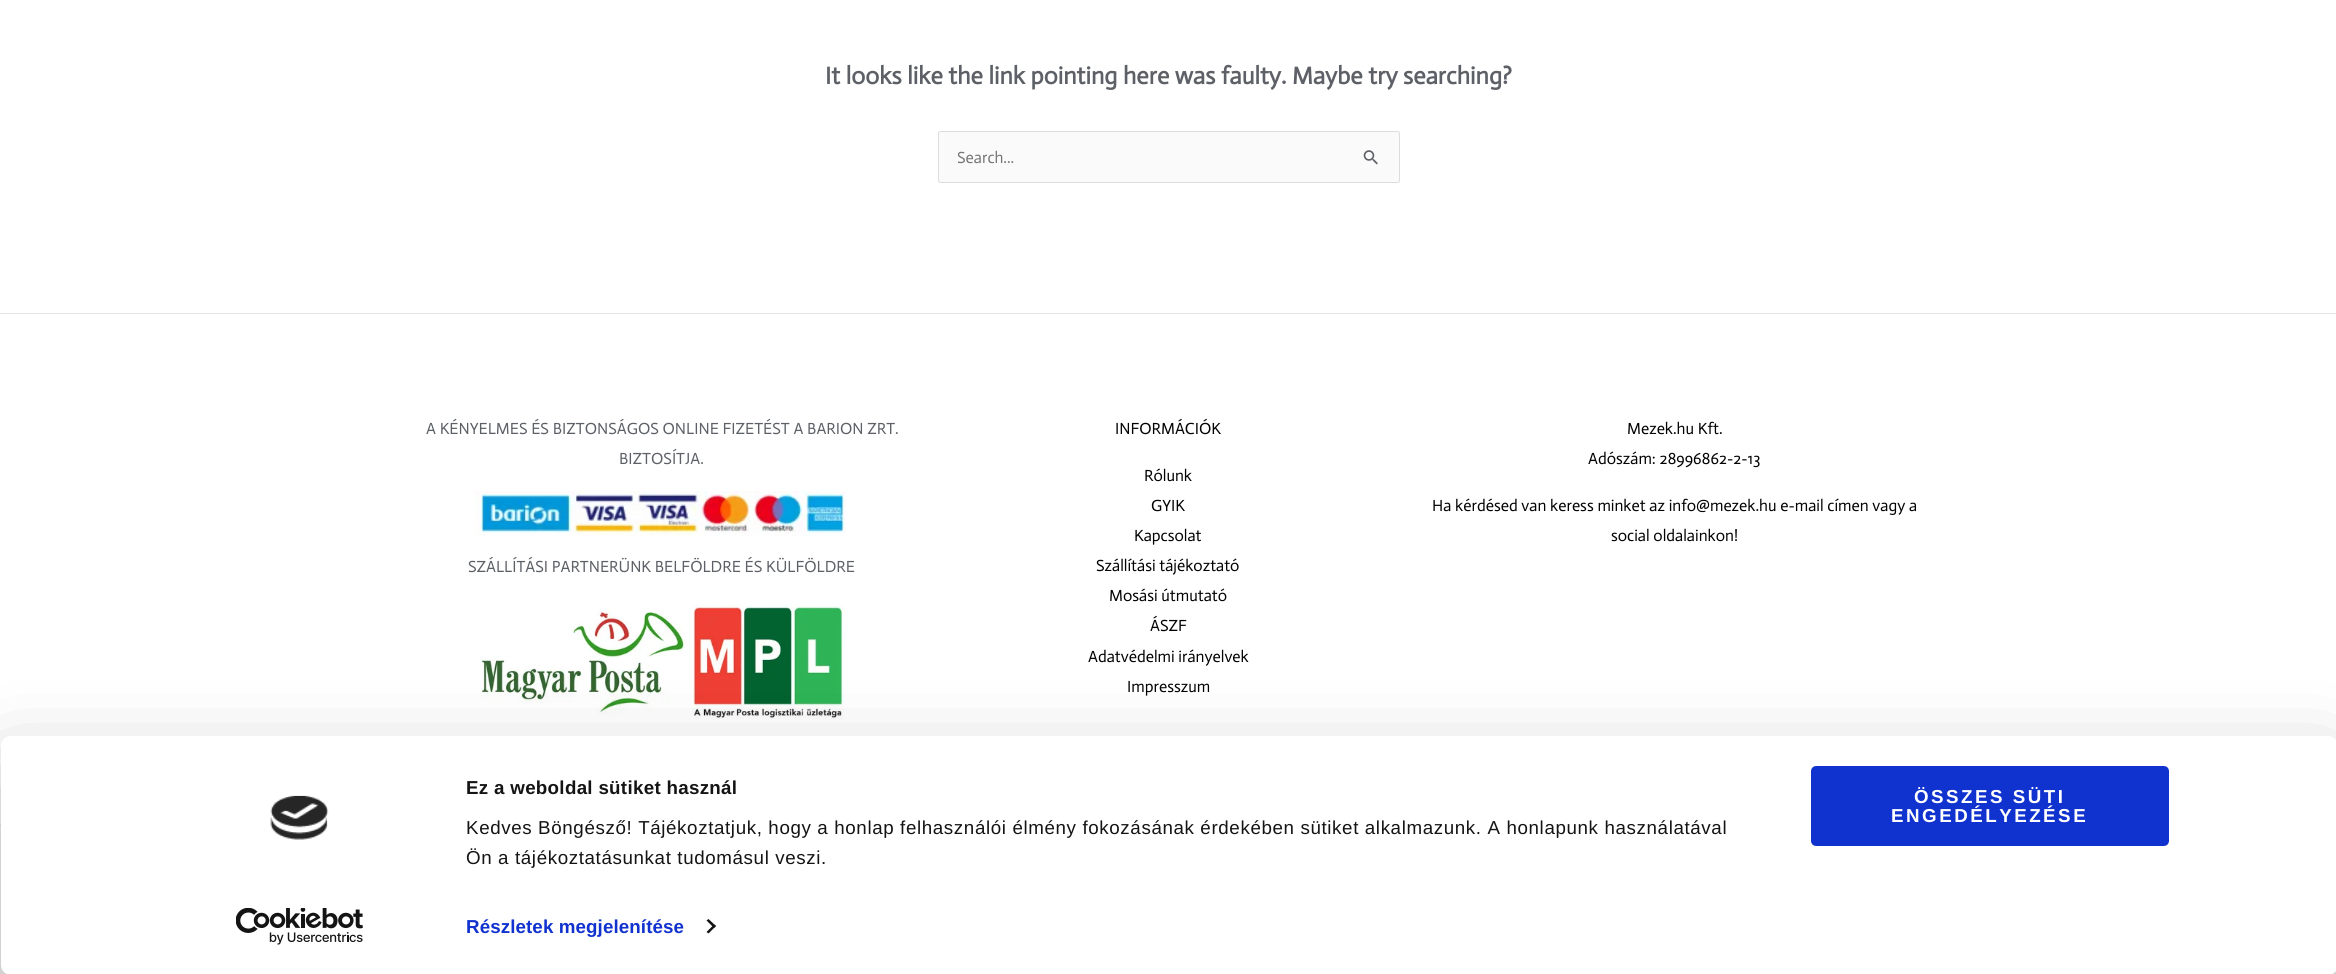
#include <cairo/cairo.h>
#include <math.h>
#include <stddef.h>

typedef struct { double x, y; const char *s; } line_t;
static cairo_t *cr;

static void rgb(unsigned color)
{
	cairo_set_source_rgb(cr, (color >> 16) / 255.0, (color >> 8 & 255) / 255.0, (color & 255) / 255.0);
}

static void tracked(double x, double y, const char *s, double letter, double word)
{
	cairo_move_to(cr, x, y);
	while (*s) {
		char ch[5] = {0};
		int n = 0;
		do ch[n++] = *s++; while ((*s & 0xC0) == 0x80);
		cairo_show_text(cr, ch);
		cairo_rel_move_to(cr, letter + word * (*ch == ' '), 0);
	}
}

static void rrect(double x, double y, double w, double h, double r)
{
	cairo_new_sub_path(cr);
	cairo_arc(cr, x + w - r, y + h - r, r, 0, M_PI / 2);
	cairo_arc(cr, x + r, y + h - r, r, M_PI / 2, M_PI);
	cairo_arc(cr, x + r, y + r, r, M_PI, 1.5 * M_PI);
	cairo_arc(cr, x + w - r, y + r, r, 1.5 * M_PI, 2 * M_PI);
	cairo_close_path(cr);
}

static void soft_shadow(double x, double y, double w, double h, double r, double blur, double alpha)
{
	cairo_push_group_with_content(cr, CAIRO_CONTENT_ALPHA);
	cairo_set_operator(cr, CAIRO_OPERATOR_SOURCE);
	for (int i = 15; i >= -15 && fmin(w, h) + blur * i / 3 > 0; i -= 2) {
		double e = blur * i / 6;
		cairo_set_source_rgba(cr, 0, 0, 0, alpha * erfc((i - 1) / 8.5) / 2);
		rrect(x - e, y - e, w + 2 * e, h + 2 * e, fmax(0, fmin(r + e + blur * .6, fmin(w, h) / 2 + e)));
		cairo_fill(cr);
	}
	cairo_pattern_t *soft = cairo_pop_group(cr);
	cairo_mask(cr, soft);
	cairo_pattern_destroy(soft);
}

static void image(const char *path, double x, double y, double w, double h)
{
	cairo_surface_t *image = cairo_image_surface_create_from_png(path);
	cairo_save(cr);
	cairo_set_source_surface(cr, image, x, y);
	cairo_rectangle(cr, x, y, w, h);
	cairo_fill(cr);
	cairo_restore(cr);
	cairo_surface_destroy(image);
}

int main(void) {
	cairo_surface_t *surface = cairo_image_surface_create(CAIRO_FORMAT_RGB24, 2336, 974);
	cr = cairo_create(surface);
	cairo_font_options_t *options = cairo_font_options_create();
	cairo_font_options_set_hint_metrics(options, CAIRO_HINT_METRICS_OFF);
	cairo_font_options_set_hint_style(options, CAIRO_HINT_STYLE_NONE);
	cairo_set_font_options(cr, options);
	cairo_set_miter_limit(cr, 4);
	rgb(0xffffff);
	cairo_paint(cr);
	rgb(0xfafafa);
	rrect(938.5, 131.5, 461, 51, 2);
	cairo_fill_preserve(cr);
	rgb(0xdddddd);
	cairo_set_line_width(cr, 1);
	cairo_stroke(cr);
	image("img/1.png", 1363, 150, 15, 15);
	rgb(0xf7f7f8);
	cairo_rectangle(cr, 0, 825, 2336, 149);
	cairo_fill(cr);
	rgb(0xe6e6e6);
	cairo_rectangle(cr, 0, 313, 2336, 1);
	cairo_fill(cr);
	image("img/2.png", 475, 491, 371, 45);
	image("img/3.png", 480, 604, 365, 116);
	rgb(0xeaeaea);
	cairo_rectangle(cr, 0, 824, 1, 1);
	cairo_fill(cr);
	rgb(0x000000);
	soft_shadow(1, 774, 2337, 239, 10, 44, 0.3);
	rgb(0xffffff);
	rrect(1, 736, 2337, 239, 10);
	cairo_fill(cr);
	image("img/4.png", 270, 795, 59, 45);
	image("img/5.png", 236, 908, 127, 37);
	rgb(0x141414);
	cairo_new_path(cr);
	cairo_move_to(cr, 708.5, 919);
	cairo_line_to(cr, 716, 926);
	cairo_line_to(cr, 714, 928);
	cairo_line_to(cr, 706.5, 920.5);
	cairo_close_path(cr);
	cairo_fill(cr);
	cairo_new_path(cr);
	cairo_move_to(cr, 714, 924.5);
	cairo_line_to(cr, 716, 926);
	cairo_line_to(cr, 708.5, 933.5);
	cairo_line_to(cr, 706.5, 932);
	cairo_close_path(cr);
	cairo_fill(cr);
	rgb(0x1032cf);
	rrect(1812.5, 767.5, 355, 77, 3.5);
	cairo_fill_preserve(cr);
	cairo_set_line_width(cr, 3);
	cairo_stroke(cr);
	cairo_select_font_face(cr, "Actor", CAIRO_FONT_SLANT_NORMAL, CAIRO_FONT_WEIGHT_BOLD);
	cairo_set_font_size(cr, 24.4);
	rgb(0x5d6167);
	cairo_move_to(cr, 825, 84);
	cairo_show_text(cr, "It looks like the link pointing here was faulty. Maybe try searching?");
	cairo_save(cr);
	cairo_rectangle(cr, 958, 148, 380, 18);
	cairo_clip(cr);
	cairo_select_font_face(cr, "Actor", CAIRO_FONT_SLANT_NORMAL, CAIRO_FONT_WEIGHT_NORMAL);
	cairo_set_font_size(cr, 16.25);
	rgb(0x757575);
	cairo_move_to(cr, 957, 163);
	cairo_show_text(cr, "Search...");
	cairo_restore(cr);
	cairo_select_font_face(cr, "Actor", CAIRO_FONT_SLANT_NORMAL, CAIRO_FONT_WEIGHT_NORMAL);
	cairo_set_font_size(cr, 16.25);
	{
		static const line_t items[] = {
			{426, 434, "A KÉNYELMES ÉS BIZTONSÁGOS ONLINE FIZETÉST A BARION ZRT."},
			{619, 464, "BIZTOSÍTJA."},
			{468, 572, "SZÁLLÍTÁSI PARTNERÜNK BELFÖLDRE ÉS KÜLFÖLDRE"},
		};
		for (size_t i = 0; i < sizeof items / sizeof *items; i++) {
			cairo_move_to(cr, items[i].x, items[i].y);
			cairo_show_text(cr, items[i].s);
		}
	}
	rgb(0x020202);
	{
		static const line_t items[] = {
			{1115, 434, "INFORMÁCIÓK"},
			{1144, 481, "Rólunk"},
			{1151, 511, "GYIK"},
			{1134, 541, "Kapcsolat"},
			{1096, 571, "Szállítási tájékoztató"},
			{1109, 601, "Mosási útmutató"},
			{1150, 631, "ÁSZF"},
			{1088, 662, "Adatvédelmi irányelvek"},
			{1127, 692, "Impresszum"},
			{1627, 434, "Mezek.hu Kft."},
			{1588, 464, "Adószám: 28996862-2-13"},
			{1432, 511, "Ha kérdésed van keress minket az info@mezek.hu e-mail címen vagy a"},
			{1611, 541, "social oldalainkon!"},
		};
		for (size_t i = 0; i < sizeof items / sizeof *items; i++) {
			cairo_move_to(cr, items[i].x, items[i].y);
			cairo_show_text(cr, items[i].s);
		}
	}
	cairo_select_font_face(cr, "Liberation Sans", CAIRO_FONT_SLANT_NORMAL, CAIRO_FONT_WEIGHT_BOLD);
	cairo_set_font_size(cr, 18.75);
	rgb(0x141414);
	tracked(466, 794, "Ez a weboldal sütiket használ", 0.3, 0);
	cairo_select_font_face(cr, "Liberation Sans", CAIRO_FONT_SLANT_NORMAL, CAIRO_FONT_WEIGHT_NORMAL);
	tracked(466, 834, "Kedves Böngésző! Tájékoztatjuk, hogy a honlap felhasználói élmény fokozásának érdekében sütiket alkalmazunk. A honlapunk használatával", 0.62, 0);
	tracked(466, 864, "Ön a tájékoztatásunkat tudomásul veszi.", 0.62, 0);
	cairo_select_font_face(cr, "Liberation Sans", CAIRO_FONT_SLANT_NORMAL, CAIRO_FONT_WEIGHT_BOLD);
	rgb(0x1032cf);
	tracked(466, 933, "Részletek megjelenítése", 0.1, 0);
	rgb(0xffffff);
	tracked(1914, 803, "ÖSSZES SÜTI", 2.5, 0);
	tracked(1891, 822, "ENGEDÉLYEZÉSE", 2.5, 0);
	cairo_surface_write_to_png(surface, "page.png");
	cairo_font_options_destroy(options);
	cairo_destroy(cr);
	cairo_surface_destroy(surface);
	return 0;
}
